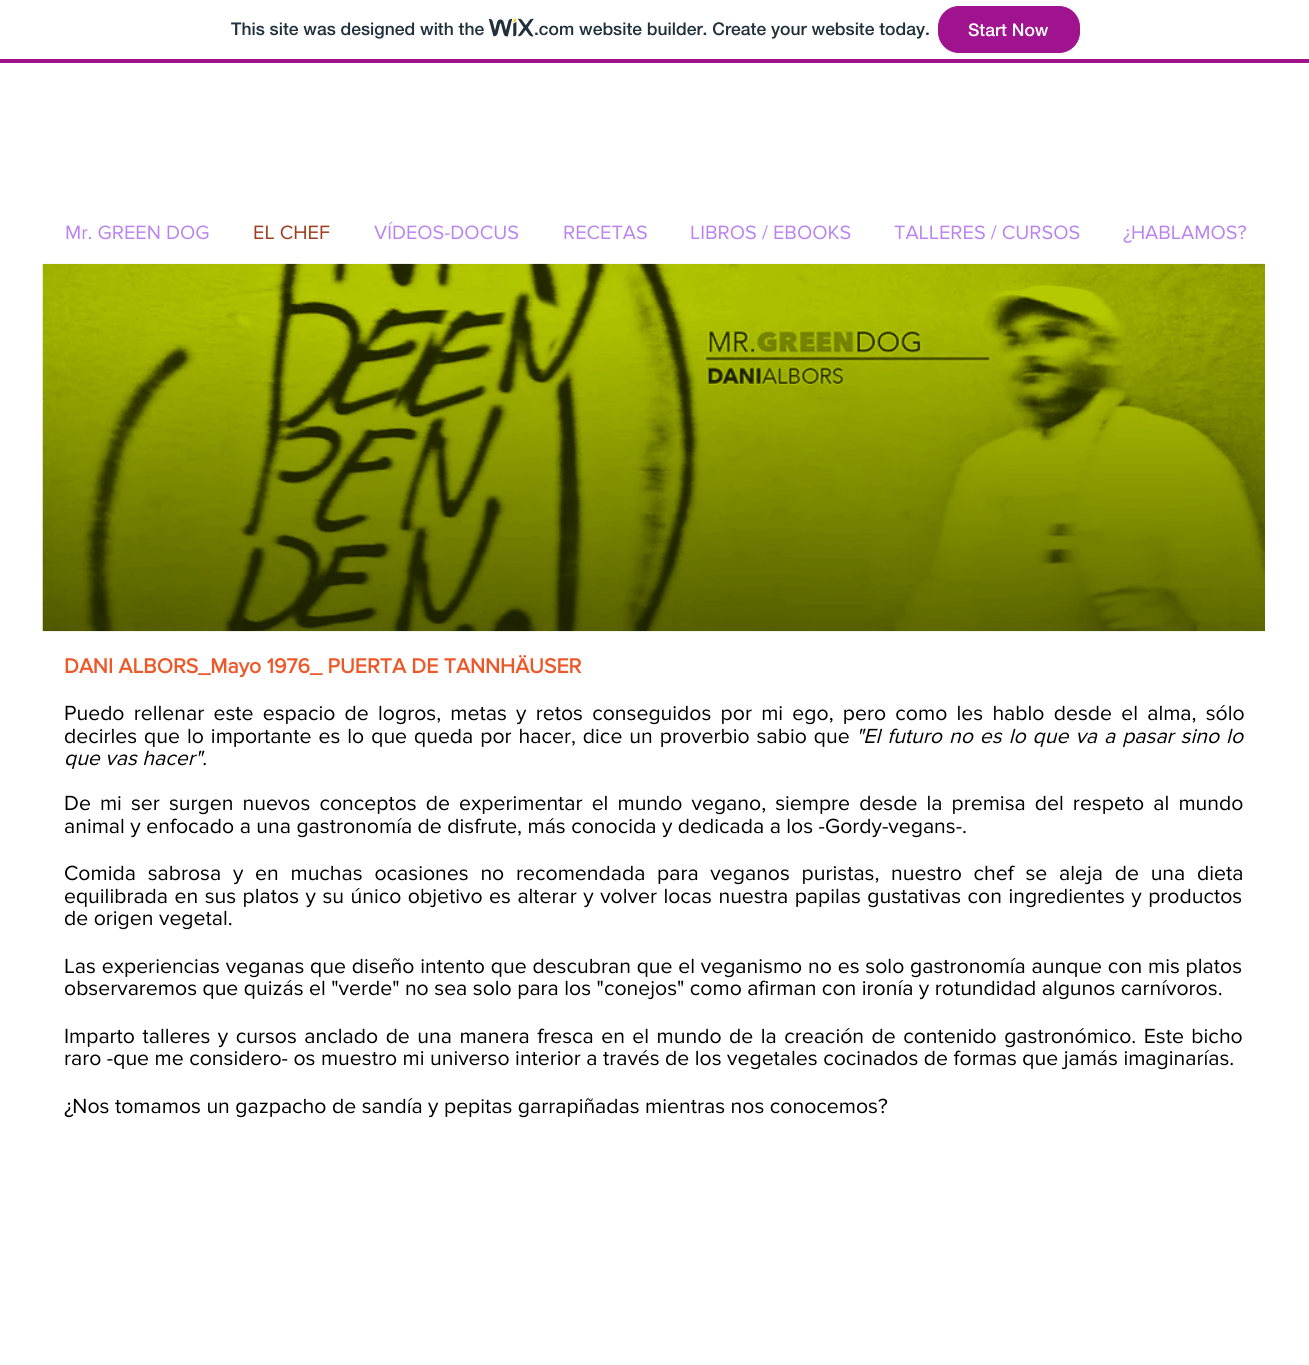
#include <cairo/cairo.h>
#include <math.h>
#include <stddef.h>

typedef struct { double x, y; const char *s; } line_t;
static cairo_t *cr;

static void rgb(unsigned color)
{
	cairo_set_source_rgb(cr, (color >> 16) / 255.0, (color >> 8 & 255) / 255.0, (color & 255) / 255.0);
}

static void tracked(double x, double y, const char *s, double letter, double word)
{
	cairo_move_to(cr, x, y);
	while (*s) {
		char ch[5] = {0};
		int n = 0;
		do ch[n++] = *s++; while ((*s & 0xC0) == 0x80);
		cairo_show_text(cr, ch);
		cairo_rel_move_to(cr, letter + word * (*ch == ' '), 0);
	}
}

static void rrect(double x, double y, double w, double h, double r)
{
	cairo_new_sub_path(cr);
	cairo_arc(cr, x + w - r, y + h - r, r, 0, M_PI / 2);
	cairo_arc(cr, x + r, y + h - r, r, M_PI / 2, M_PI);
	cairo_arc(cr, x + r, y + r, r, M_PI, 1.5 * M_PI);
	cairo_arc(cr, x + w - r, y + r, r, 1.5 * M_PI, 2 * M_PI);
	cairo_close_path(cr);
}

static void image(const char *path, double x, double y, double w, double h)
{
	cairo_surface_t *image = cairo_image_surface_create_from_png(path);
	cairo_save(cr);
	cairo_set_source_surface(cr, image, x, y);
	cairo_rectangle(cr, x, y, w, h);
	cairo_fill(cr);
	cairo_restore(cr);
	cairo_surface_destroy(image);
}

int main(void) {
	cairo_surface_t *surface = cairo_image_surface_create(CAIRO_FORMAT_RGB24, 1309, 1365);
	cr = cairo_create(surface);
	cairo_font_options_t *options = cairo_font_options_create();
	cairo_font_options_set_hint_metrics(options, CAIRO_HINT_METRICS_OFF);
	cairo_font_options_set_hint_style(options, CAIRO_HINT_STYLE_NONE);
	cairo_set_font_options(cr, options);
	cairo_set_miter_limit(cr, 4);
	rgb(0xffffff);
	cairo_paint(cr);
	rgb(0xa0138e);
	cairo_rectangle(cr, 0, 59, 1309, 4);
	cairo_fill(cr);
	image("img/1.png", 489, 18, 45, 19);
	rrect(938.5, 6.5, 141, 46, 20.5);
	cairo_fill_preserve(cr);
	cairo_set_line_width(cr, 1);
	cairo_stroke(cr);
	image("img/2.png", 42, 263, 1223, 369);
	cairo_select_font_face(cr, "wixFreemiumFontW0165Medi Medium", CAIRO_FONT_SLANT_NORMAL, CAIRO_FONT_WEIGHT_NORMAL);
	cairo_set_font_size(cr, 17.5);
	rgb(0x20303c);
	cairo_move_to(cr, 231, 35);
	cairo_show_text(cr, "This site was designed with the");
	cairo_move_to(cr, 534, 35);
	cairo_show_text(cr, ".com website builder. Create your website today.");
	rgb(0xffffff);
	cairo_move_to(cr, 968, 36);
	cairo_show_text(cr, "Start Now");
	cairo_select_font_face(cr, "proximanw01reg", CAIRO_FONT_SLANT_NORMAL, CAIRO_FONT_WEIGHT_NORMAL);
	cairo_set_font_size(cr, 20);
	rgb(0xba83f0);
	cairo_move_to(cr, 65, 239);
	cairo_show_text(cr, "Mr. GREEN DOG");
	rgb(0x9e3b1b);
	cairo_move_to(cr, 253, 239);
	cairo_show_text(cr, "EL CHEF");
	rgb(0xba83f0);
	{
		static const line_t items[] = {
			{374, 239, "VÍDEOS-DOCUS"},
			{563, 239, "RECETAS"},
			{690, 239, "LIBROS / EBOOKS"},
			{894, 239, "TALLERES / CURSOS"},
			{1123, 239, "¿HABLAMOS?"},
		};
		for (size_t i = 0; i < sizeof items / sizeof *items; i++) {
			cairo_move_to(cr, items[i].x, items[i].y);
			cairo_show_text(cr, items[i].s);
		}
	}
	cairo_select_font_face(cr, "proximanw01reg", CAIRO_FONT_SLANT_NORMAL, CAIRO_FONT_WEIGHT_BOLD);
	cairo_set_font_size(cr, 21.25);
	rgb(0xed5829);
	cairo_move_to(cr, 64, 673);
	cairo_show_text(cr, "DANI ALBORS_Mayo 1976_ PUERTA DE TANNHÄUSER");
	cairo_select_font_face(cr, "proximanw01reg", CAIRO_FONT_SLANT_NORMAL, CAIRO_FONT_WEIGHT_NORMAL);
	rgb(0x000000);
	tracked(64, 720, "Puedo rellenar este espacio de logros, metas y retos conseguidos por mi ego, pero como les hablo desde el alma, sólo", 0, 3.75);
	tracked(64, 743, "decirles que lo importante es lo que queda por hacer, dice un proverbio sabio que", 0, 1.5);
	cairo_select_font_face(cr, "proximanw01reg", CAIRO_FONT_SLANT_ITALIC, CAIRO_FONT_WEIGHT_NORMAL);
	tracked(856, 743, "\"El futuro no es lo que va a pasar sino lo", 0, 1.5);
	cairo_move_to(cr, 64, 765);
	cairo_show_text(cr, "que vas hacer\".");
	cairo_select_font_face(cr, "proximanw01reg", CAIRO_FONT_SLANT_NORMAL, CAIRO_FONT_WEIGHT_NORMAL);
	tracked(64, 810, "De mi ser surgen nuevos conceptos de experimentar el mundo vegano, siempre desde la premisa del respeto al mundo", 0, 3.6);
	cairo_move_to(cr, 64, 833);
	cairo_show_text(cr, "animal y enfocado a una gastronomía de disfrute, más conocida y dedicada a los -Gordy-vegans-.");
	tracked(64, 880, "Comida sabrosa y en muchas ocasiones no recomendada para veganos puristas, nuestro chef se aleja de una dieta", 0, 6.25);
	tracked(64, 903, "equilibrada en sus platos y su único objetivo es alterar y volver locas nuestra papilas gustativas con ingredientes y productos", 0, 1);
	cairo_move_to(cr, 64, 925);
	cairo_show_text(cr, "de origen vegetal.");
	tracked(64, 973, "Las experiencias veganas que diseño intento que descubran que el veganismo no es solo gastronomía aunque con mis platos", 0, 0.3);
	cairo_move_to(cr, 64, 995);
	cairo_show_text(cr, "observaremos que quizás el \"verde\" no sea solo para los \"conejos\" como afirman con ironía y rotundidad algunos carnívoros.");
	tracked(64, 1043, "Imparto talleres y cursos anclado de una manera fresca en el mundo de la creación de contenido gastronómico. Este bicho", 0, 2);
	cairo_move_to(cr, 64, 1065);
	cairo_show_text(cr, "raro -que me considero- os muestro mi universo interior a través de los vegetales cocinados de formas que jamás imaginarías.");
	cairo_move_to(cr, 64, 1113);
	cairo_show_text(cr, "¿Nos tomamos un gazpacho de sandía y pepitas garrapiñadas mientras nos conocemos?");
	cairo_surface_write_to_png(surface, "page.png");
	cairo_font_options_destroy(options);
	cairo_destroy(cr);
	cairo_surface_destroy(surface);
	return 0;
}
